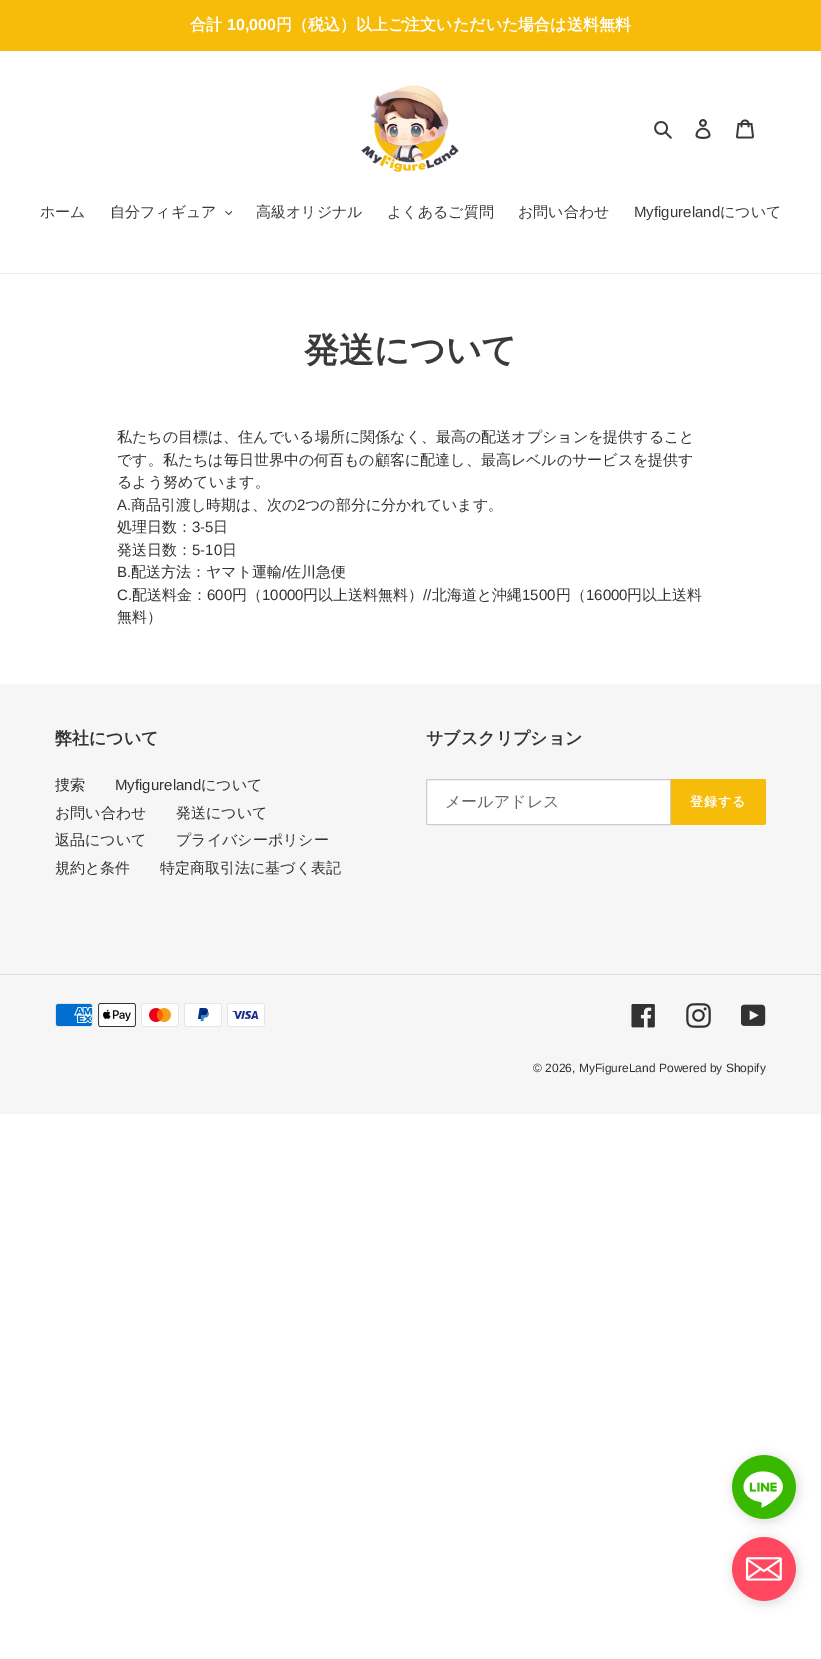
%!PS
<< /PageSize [821 1659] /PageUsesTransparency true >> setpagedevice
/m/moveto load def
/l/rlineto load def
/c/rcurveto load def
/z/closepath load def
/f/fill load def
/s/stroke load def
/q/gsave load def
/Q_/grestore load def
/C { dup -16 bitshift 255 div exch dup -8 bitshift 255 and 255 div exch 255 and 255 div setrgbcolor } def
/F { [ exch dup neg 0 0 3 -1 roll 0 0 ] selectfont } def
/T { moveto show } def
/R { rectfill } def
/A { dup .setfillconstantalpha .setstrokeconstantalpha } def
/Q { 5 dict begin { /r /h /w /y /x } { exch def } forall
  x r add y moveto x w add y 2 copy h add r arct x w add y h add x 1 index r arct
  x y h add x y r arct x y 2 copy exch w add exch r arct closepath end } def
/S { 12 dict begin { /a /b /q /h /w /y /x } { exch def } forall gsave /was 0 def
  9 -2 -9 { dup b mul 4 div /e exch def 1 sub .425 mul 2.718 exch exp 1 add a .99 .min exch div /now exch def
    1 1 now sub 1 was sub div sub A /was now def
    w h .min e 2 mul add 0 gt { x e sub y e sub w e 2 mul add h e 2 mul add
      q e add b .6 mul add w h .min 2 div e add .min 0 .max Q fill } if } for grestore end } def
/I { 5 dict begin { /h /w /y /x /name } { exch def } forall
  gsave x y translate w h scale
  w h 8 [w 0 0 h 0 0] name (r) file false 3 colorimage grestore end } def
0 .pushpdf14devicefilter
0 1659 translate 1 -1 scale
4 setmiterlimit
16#FFFFFF C
0 0 821 1659 R
16#F6BC09 C
0 0 821 51 R
/WenQuanYiZenHei-Bold 16 F
16#FFFFFF C
(合計) 190 30 T
/LiberationSans-Bold 16 F
(10,000) 227 30 T
/WenQuanYiZenHei-Bold 16 F
(円（税込）以上ご注文いただいた場合は送料無料) 276 30 T
(1.rgb) 361 85 98 87 I
(2.rgb) 654 121 18 18 I
(3.rgb) 695 119 16 20 I
(4.rgb) 736 119 18 20 I
16#EBEBEB C
0 273 821 1 R
/WenQuanYiZenHei-Medium 15 F
16#3A3A3A C
(ホーム) 40 217 T
(自分フィギュア) 110 217 T
(5.rgb) 225 211 7 4 I
(高級オリジナル) 256 217 T
(よくあるご質問) 387 217 T
(お問い合わせ) 518 217 T
/LiberationSans-Regular 15 F
(Myfigureland) 634 217 T
/WenQuanYiZenHei-Medium 15 F
(について) 720 217 T
/WenQuanYiZenHei-Bold 35 F
(発送について) 304 362 T
/WenQuanYiZenHei-Medium 15 F
16#333232 C
(私たちの目標は、住んでいる場所に関係なく、最高の配送オプションを提供すること) 117 442 T
(です。私たちは毎日世界中の何百もの顧客に配達し、最高レベルのサービスを提供す) 117 465 T
(るよう努めています。) 117 487 T
/LiberationSans-Regular 15 F
(A.) 117 510 T
/WenQuanYiZenHei-Medium 15 F
(商品引渡し時期は、次の) 131 510 T
/LiberationSans-Regular 15 F
(2) 297 510 T
/WenQuanYiZenHei-Medium 15 F
(つの部分に分かれています。) 305 510 T
(処理日数：) 117 532 T
/LiberationSans-Regular 15 F
(3-5) 192 532 T
/WenQuanYiZenHei-Medium 15 F
(日) 213 532 T
(発送日数：) 117 555 T
/LiberationSans-Regular 15 F
(5-10) 192 555 T
/WenQuanYiZenHei-Medium 15 F
(日) 222 555 T
/LiberationSans-Regular 15 F
(B.) 117 577 T
/WenQuanYiZenHei-Medium 15 F
(配送方法：ヤマト運輸) 131 577 T
/LiberationSans-Regular 15 F
(/) 282 577 T
/WenQuanYiZenHei-Medium 15 F
(佐川急便) 286 577 T
/LiberationSans-Regular 15 F
(C.) 117 600 T
/WenQuanYiZenHei-Medium 15 F
(配送料金：) 132 600 T
/LiberationSans-Regular 15 F
(600) 207 600 T
/WenQuanYiZenHei-Medium 15 F
(円（) 232 600 T
/LiberationSans-Regular 15 F
(10000) 262 600 T
/WenQuanYiZenHei-Medium 15 F
(円以上送料無料）) 303 600 T
/LiberationSans-Regular 15 F
(//) 423 600 T
/WenQuanYiZenHei-Medium 15 F
(北海道と沖縄) 432 600 T
/LiberationSans-Regular 15 F
(1500) 522 600 T
/WenQuanYiZenHei-Medium 15 F
(円（) 556 600 T
/LiberationSans-Regular 15 F
(16000) 586 600 T
/WenQuanYiZenHei-Medium 15 F
(円以上送料) 627 600 T
(無料）) 117 622 T
16#F6F6F6 C
0 684 821 430 R
/WenQuanYiZenHei-Bold 17 F
16#333232 C
(弊社について) 55 744 T
/WenQuanYiZenHei-Medium 15 F
(捜索) 55 790 T
/LiberationSans-Regular 15 F
(Myfigureland) 115 790 T
/WenQuanYiZenHei-Medium 15 F
(について) 201 790 T
(お問い合わせ) 55 818 T
(発送について) 176 818 T
(返品について) 55 845 T
(プライバシーポリシー) 176 845 T
(規約と条件) 55 873 T
(特定商取引法に基づく表記) 160 873 T
/WenQuanYiZenHei-Bold 17 F
(サブスクリプション) 426 744 T
16#FFFFFF C
428 779.5 m 242.5 0 l 0 45 l -242.5 0 l -1 0 -1.5 -.5 -1.5 -1.5 c 0 -42 l 0 -1 .5 -1.5 1.5 -1.5 c z q f Q_
16#CCCCCC C
s
/WenQuanYiZenHei-Medium 16 F
16#666666 C
(メールアドレス) 445 807 T
16#F6BC09 C
671 779 m 93 0 l 1 0 2 1 2 2 c 0 42 l 0 1 -1 2 -2 2 c -93 0 l z f
/WenQuanYiZenHei-Bold 13 F
16#FFFFFF C
690 806 m 1 0 (登録する) ashow
16#DDDDDD C
0 974 821 1 R
(6.rgb) 55 1003 38 24 I
(7.rgb) 98 1003 38 24 I
(8.rgb) 141 1003 38 24 I
(9.rgb) 184 1003 38 24 I
(10.rgb) 227 1003 38 24 I
(11.rgb) 631 1004 24 24 I
(12.rgb) 686 1003 25 25 I
(13.rgb) 741 1004 25 22 I
/LiberationSans-Regular 12 F
16#333232 C
(© 2026, MyFigureLand) 533 1072 T
(Powered by Shopify) 659 1072 T
16#000000 C
732 1537 68 68 34 4.5 .07 S
732 1539 64 64 32 5 .05 S
(15.rgb) 732 1537 64 64 I
732 1455 68 68 34 4.5 .07 S
732 1457 64 64 32 5 .05 S
(14.rgb) 732 1455 64 64 I
.poppdf14devicefilter showpage
